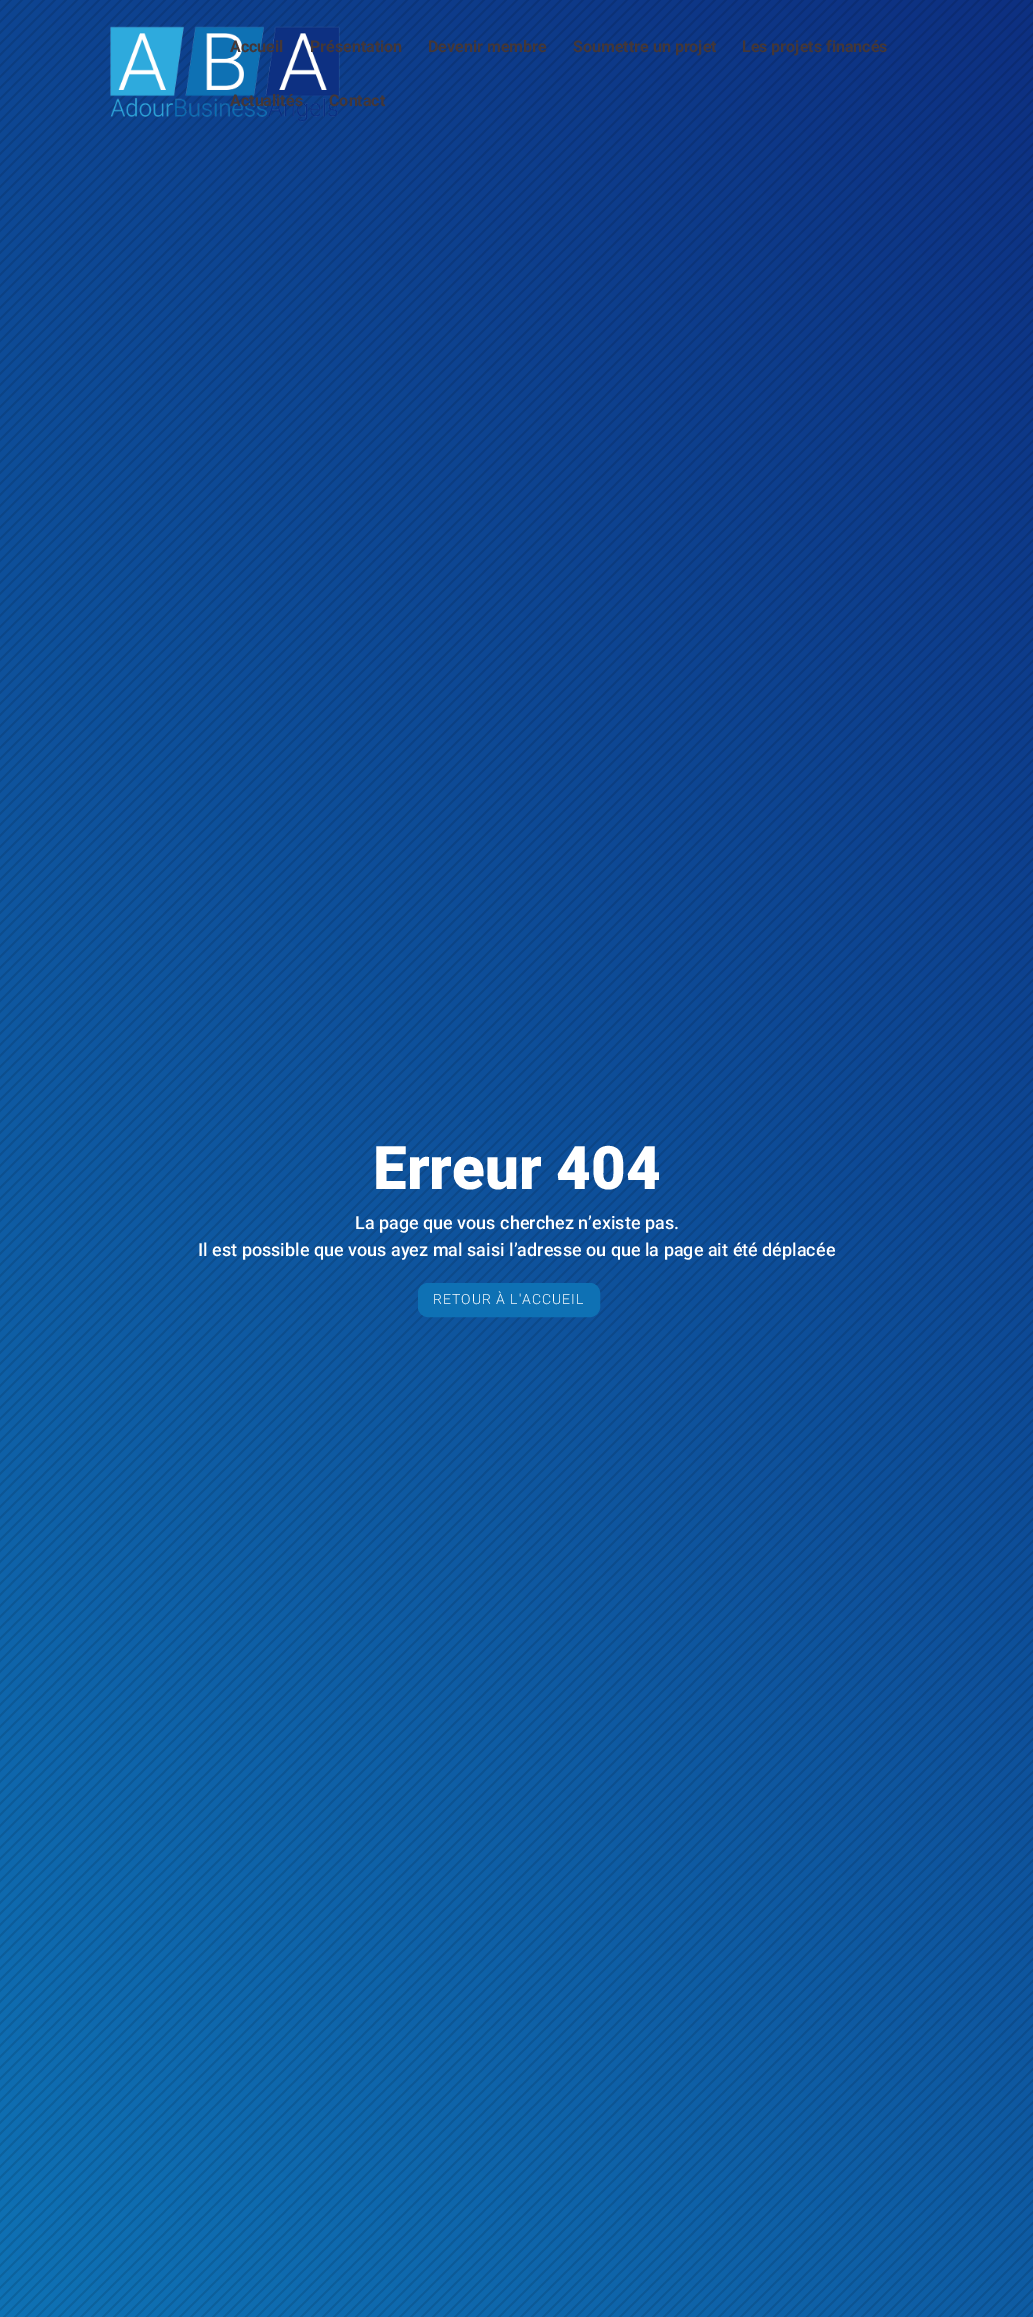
%!PS
<< /PageSize [1033 2317] >> setpagedevice
/m/moveto load def
/l/rlineto load def
/z/closepath load def
/f/fill load def
/s/stroke load def
/q/gsave load def
/Q_/grestore load def
/C { dup -16 bitshift 255 div exch dup -8 bitshift 255 and 255 div exch 255 and 255 div setrgbcolor } def
/F { [ exch dup neg 0 0 3 -1 roll 0 0 ] selectfont } def
/T { moveto show } def
/R { rectfill } def
/Q { 5 dict begin { /r /h /w /y /x } { exch def } forall
  x r add y moveto x w add y 2 copy h add r arct x w add y h add x 1 index r arct
  x y h add x y r arct x y 2 copy exch w add exch r arct closepath end } def
/I { 5 dict begin { /h /w /y /x /name } { exch def } forall
  gsave x y translate w h scale
  w h 8 [w 0 0 h 0 0] name (r) file false 3 colorimage grestore end } def
0 2317 translate 1 -1 scale
4 setmiterlimit
16#FFFFFF C
0 0 1033 2317 R
q 0 0 m 1033 0 l 0 2317 l -1033 0 l z clip newpath
<< /ShadingType 2 /ColorSpace /DeviceRGB /Coords [-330 1976 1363 341] /Extend [true true] /Function << /FunctionType 3 /Domain [0 1] /Functions [<< /FunctionType 2 /Domain [0 1] /C0 [.055 .443 .706] /C1 [.051 .188 .51] /N 1 >> << /FunctionType 2 /Domain [0 1] /C0 [.051 .188 .51] /C1 [.051 .188 .51] /N 1 >>] /Bounds [.99] /Encode [0 1 0 1] >> >> shfill Q_
(2.rgb) 0 0 1033 2317 I
(1.rgb) 110 26 230 96 I
/Roboto-Bold 16 F
16#443737 C
(Accueil) 230 52 T
(Présentation) 310 52 T
(Devenir membre) 428 52 T
(Soumettre un projet) 573 52 T
(Les projets financés) 742 52 T
(Actualités) 230 106 T
(Contact) 329 106 T
/Roboto-Black 60 F
16#FFFFFF C
(Erreur 404) 373 1189 T
/Roboto-Medium 18 F
(La page que vous cherchez n’existe pas.) 355 1229 T
(Il est possible que vous ayez mal saisi l’adresse ou que la page ait été déplacée) 198 1256 T
16#0E71B4 C
418.5 1283.5 181 33 9.5 Q q f Q_
s
/Roboto-Light 14 F
16#FFFFFF C
433 1304 m 1 0 (RETOUR À L'ACCUEIL) ashow
showpage
